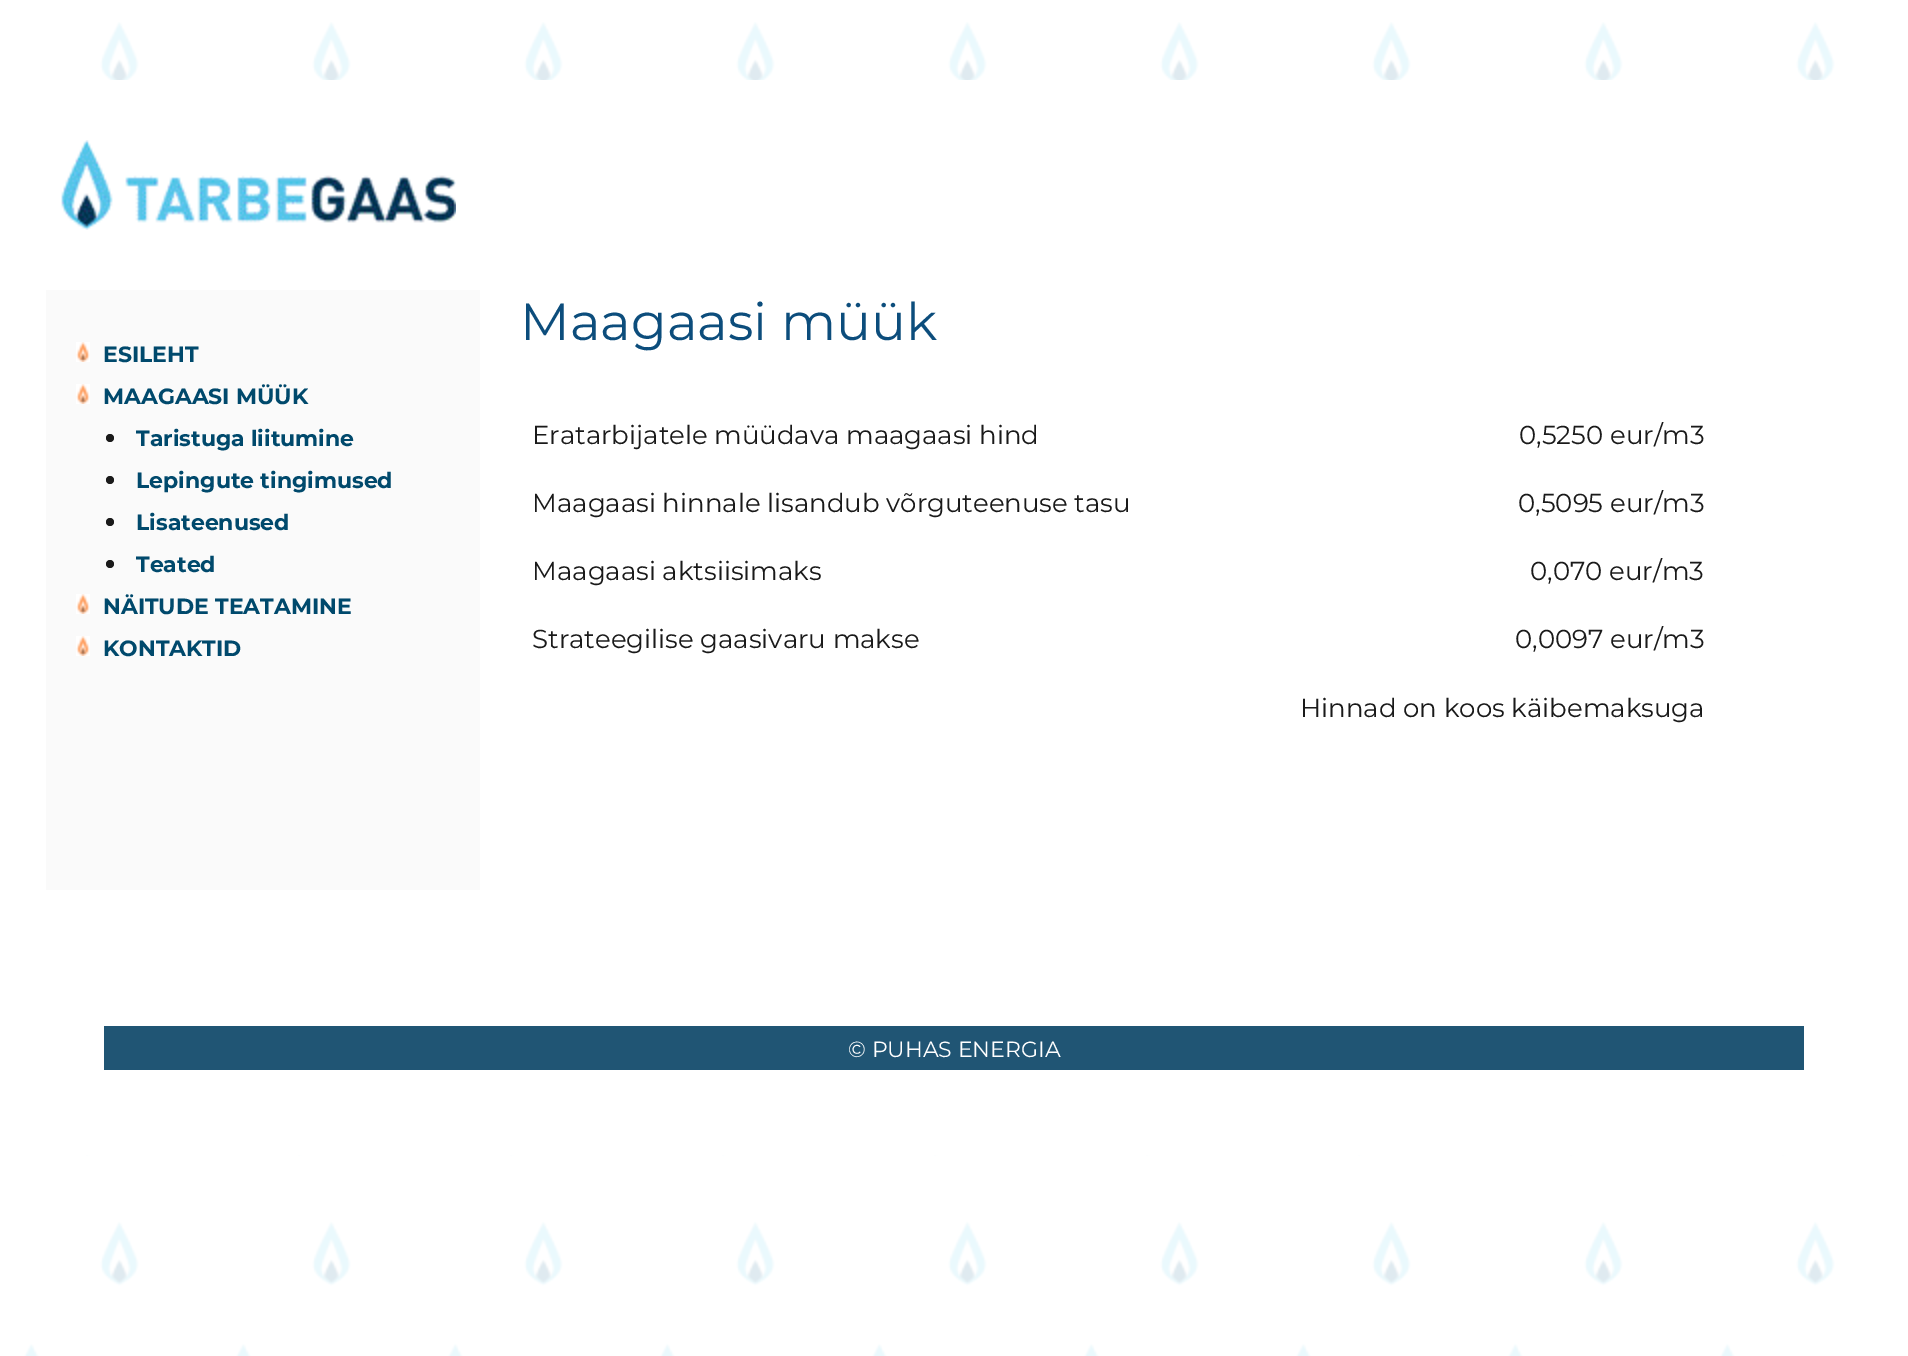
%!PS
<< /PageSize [1908 1356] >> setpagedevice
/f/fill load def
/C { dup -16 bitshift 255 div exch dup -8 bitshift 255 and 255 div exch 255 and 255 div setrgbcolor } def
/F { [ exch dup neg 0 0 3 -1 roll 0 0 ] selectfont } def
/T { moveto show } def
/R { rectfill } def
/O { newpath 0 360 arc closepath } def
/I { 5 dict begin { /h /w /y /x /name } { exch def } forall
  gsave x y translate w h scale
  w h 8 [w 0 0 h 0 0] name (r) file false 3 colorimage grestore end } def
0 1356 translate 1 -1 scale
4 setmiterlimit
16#FFFFFF C
0 0 1908 1356 R
(1.rgb) 23 22 1812 1334 I
23 80 1812 1075 R
(2.rgb) 61 140 395 90 I
16#FAFAFA C
46 290 434 600 R
(3.rgb) 76 342 14 20 I
/Montserrat-Thin 22 F
16#00496C C
(ESILEHT) 103 362 T
(3.rgb) 76 384 14 20 I
(MAAGAASI MÜÜK) 103 404 T
16#1A1A1A C
110 438 4 O f
16#00496C C
(Taristuga liitumine) 136 446 T
16#1A1A1A C
110 480 4 O f
16#00496C C
(Lepingute tingimused) 136 488 T
16#1A1A1A C
110 522 4 O f
16#00496C C
(Lisateenused) 136 530 T
16#1A1A1A C
110 564 4 O f
16#00496C C
(Teated) 136 572 T
(3.rgb) 76 594 14 20 I
(NÄITUDE TEATAMINE) 103 614 T
(3.rgb) 76 636 14 20 I
(KONTAKTID) 103 656 T
/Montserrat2-Thin 52 F
16#0C4D7C C
(Maagaasi müük) 520 340 T
/Montserrat2-Thin 26 F
16#1A1A1A C
(Eratarbijatele müüdava maagaasi hind) 532 444 T
(0,5250 eur/m3) 1519 444 T
(Maagaasi hinnale lisandub võrguteenuse tasu) 532 512 T
(0,5095 eur/m3) 1518 512 T
(Maagaasi aktsiisimaks) 532 580 T
(0,070 eur/m3) 1530 580 T
(Strateegilise gaasivaru makse) 532 648 T
(0,0097 eur/m3) 1515 648 T
(Hinnad on koos käibemaksuga) 1300 717 T
16#205574 C
104 1026 1700 44 R
/Montserrat2-Thin 22 F
16#FFFFFF C
(© PUHAS ENERGIA) 848 1057 T
showpage
